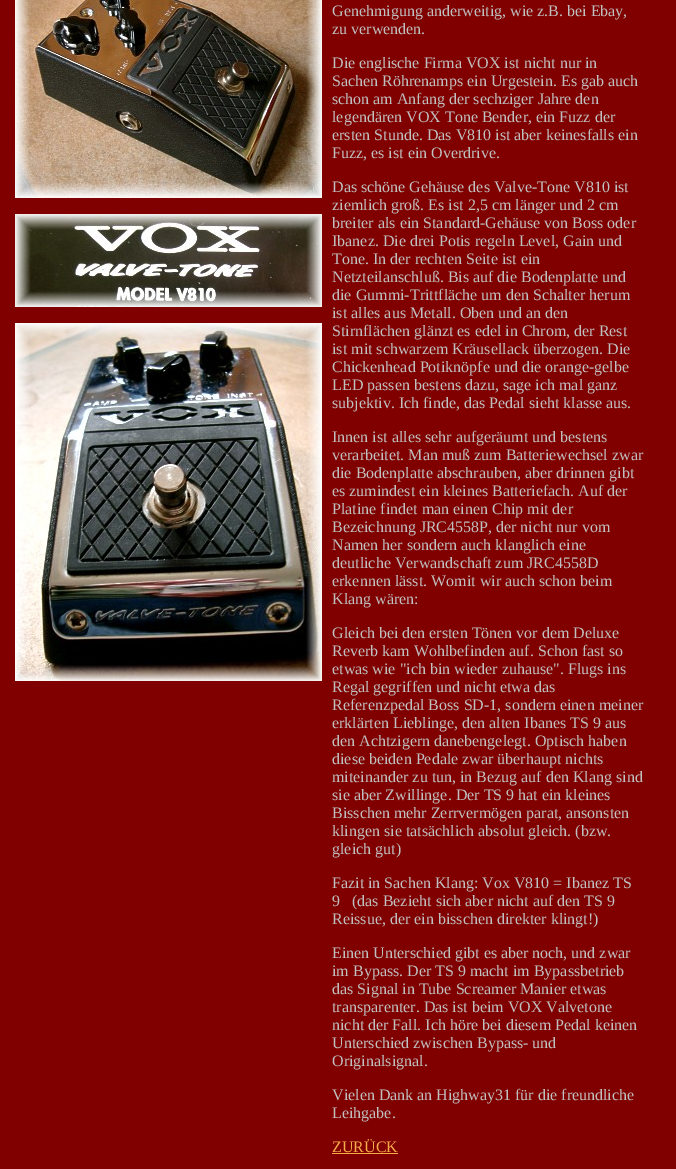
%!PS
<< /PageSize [676 1169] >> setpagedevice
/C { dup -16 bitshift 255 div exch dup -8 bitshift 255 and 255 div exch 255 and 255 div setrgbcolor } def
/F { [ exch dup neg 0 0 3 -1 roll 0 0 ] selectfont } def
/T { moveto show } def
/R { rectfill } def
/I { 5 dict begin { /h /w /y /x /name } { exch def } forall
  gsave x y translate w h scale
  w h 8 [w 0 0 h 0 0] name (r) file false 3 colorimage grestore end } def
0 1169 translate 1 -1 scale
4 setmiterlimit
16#800000 C
0 0 676 1169 R
(1.rgb) 15 0 307 198 I
(2.rgb) 15 214 307 93 I
(3.rgb) 15 323 307 358 I
/LiberationSerif-Regular 16 F
16#C0C0C0 C
(Genehmigung anderweitig, wie z.B. bei Ebay,) 332 16 T
(zu verwenden.) 332 34 T
(Die englische Firma VOX ist nicht nur in) 332 68 T
(Sachen Röhrenamps ein Urgestein. Es gab auch) 332 86 T
(schon am Anfang der sechziger Jahre den) 332 104 T
(legendären VOX Tone Bender, ein Fuzz der) 332 122 T
(ersten Stunde. Das V810 ist aber keinesfalls ein) 332 140 T
(Fuzz, es ist ein Overdrive.) 332 158 T
(Das schöne Gehäuse des Valve-Tone V810 ist) 332 192 T
(ziemlich groß. Es ist 2,5 cm länger und 2 cm) 332 210 T
(breiter als ein Standard-Gehäuse von Boss oder) 332 228 T
(Ibanez. Die drei Potis regeln Level, Gain und) 332 246 T
(Tone. In der rechten Seite ist ein) 332 264 T
(Netzteilanschluß. Bis auf die Bodenplatte und) 332 282 T
(die Gummi-Trittfläche um den Schalter herum) 332 300 T
(ist alles aus Metall. Oben und an den) 332 318 T
(Stirnflächen glänzt es edel in Chrom, der Rest) 332 336 T
(ist mit schwarzem Kräusellack überzogen. Die) 332 354 T
(Chickenhead Potiknöpfe und die orange-gelbe) 332 372 T
(LED passen bestens dazu, sage ich mal ganz) 332 390 T
(subjektiv. Ich finde, das Pedal sieht klasse aus.) 332 408 T
(Innen ist alles sehr aufgeräumt und bestens) 332 442 T
(verarbeitet. Man muß zum Batteriewechsel zwar) 332 460 T
(die Bodenplatte abschrauben, aber drinnen gibt) 332 478 T
(es zumindest ein kleines Batteriefach. Auf der) 332 496 T
(Platine findet man einen Chip mit der) 332 514 T
(Bezeichnung JRC4558P, der nicht nur vom) 332 532 T
(Namen her sondern auch klanglich eine) 332 550 T
(deutliche Verwandschaft zum JRC4558D) 332 568 T
(erkennen lässt. Womit wir auch schon beim) 332 586 T
(Klang wären:) 332 604 T
(Gleich bei den ersten Tönen vor dem Deluxe) 332 638 T
(Reverb kam Wohlbefinden auf. Schon fast so) 332 656 T
(etwas wie "ich bin wieder zuhause". Flugs ins) 332 674 T
(Regal gegriffen und nicht etwa das) 332 692 T
(Referenzpedal Boss SD-1, sondern einen meiner) 332 710 T
(erklärten Lieblinge, den alten Ibanes TS 9 aus) 332 728 T
(den Achtzigern danebengelegt. Optisch haben) 332 746 T
(diese beiden Pedale zwar überhaupt nichts) 332 764 T
(miteinander zu tun, in Bezug auf den Klang sind) 332 782 T
(sie aber Zwillinge. Der TS 9 hat ein kleines) 332 800 T
(Bisschen mehr Zerrvermögen parat, ansonsten) 332 818 T
(klingen sie tatsächlich absolut gleich. \(bzw.) 332 836 T
(gleich gut\)) 332 854 T
(Fazit in Sachen Klang: Vox V810 = Ibanez TS) 332 888 T
(9   \(das Bezieht sich aber nicht auf den TS 9) 332 906 T
(Reissue, der ein bisschen direkter klingt!\)) 332 924 T
(Einen Unterschied gibt es aber noch, und zwar) 332 958 T
(im Bypass. Der TS 9 macht im Bypassbetrieb) 332 976 T
(das Signal in Tube Screamer Manier etwas) 332 994 T
(transparenter. Das ist beim VOX Valvetone) 332 1012 T
(nicht der Fall. Ich höre bei diesem Pedal keinen) 332 1030 T
(Unterschied zwischen Bypass- und) 332 1048 T
(Originalsignal.) 332 1066 T
(Vielen Dank an Highway31 für die freundliche) 332 1100 T
(Leihgabe.) 332 1118 T
16#F5AC49 C
(ZURÜCK) 332 1152 T
332 1153 66 1 R
showpage
